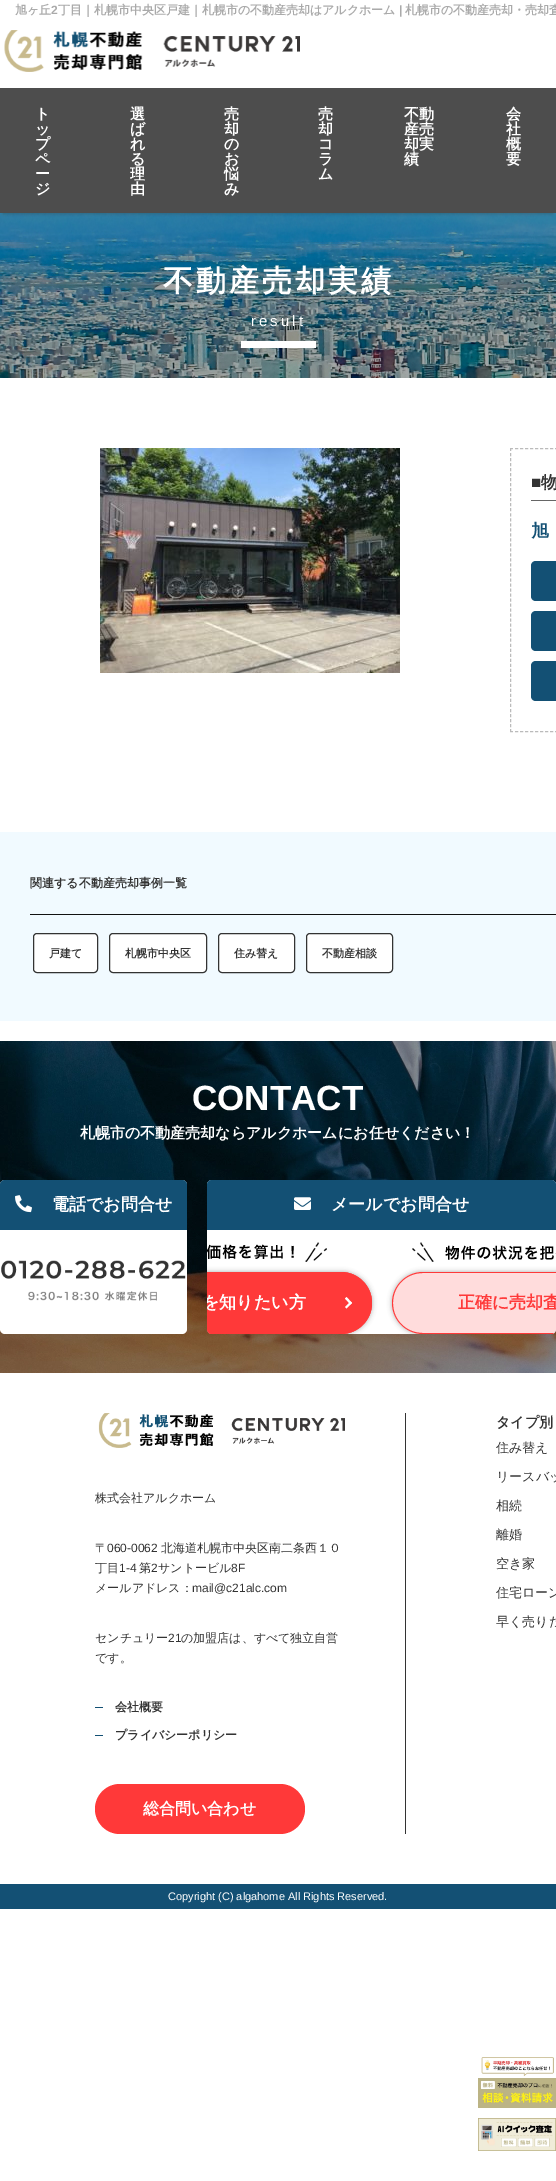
%!PS
<< /PageSize [556 2181] /PageUsesTransparency true >> setpagedevice
/m/moveto load def
/l/rlineto load def
/c/rcurveto load def
/z/closepath load def
/f/fill load def
/s/stroke load def
/q/gsave load def
/Q_/grestore load def
/C { dup -16 bitshift 255 div exch dup -8 bitshift 255 and 255 div exch 255 and 255 div setrgbcolor } def
/F { [ exch dup neg 0 0 3 -1 roll 0 0 ] selectfont } def
/T { moveto show } def
/R { rectfill } def
/A { dup .setfillconstantalpha .setstrokeconstantalpha } def
/Q { 5 dict begin { /r /h /w /y /x } { exch def } forall
  x r add y moveto x w add y 2 copy h add r arct x w add y h add x 1 index r arct
  x y h add x y r arct x y 2 copy exch w add exch r arct closepath end } def
/S { 12 dict begin { /a /b /q /h /w /y /x } { exch def } forall gsave /was 0 def
  9 -2 -9 { dup b mul 4 div /e exch def 1 sub .425 mul 2.718 exch exp 1 add a .99 .min exch div /now exch def
    1 1 now sub 1 was sub div sub A /was now def
    w h .min e 2 mul add 0 gt { x e sub y e sub w e 2 mul add h e 2 mul add
      q e add b .6 mul add w h .min 2 div e add .min 0 .max Q fill } if } for grestore end } def
/I { 5 dict begin { /h /w /y /x /name } { exch def } forall
  gsave x y translate w h scale
  w h 8 [w 0 0 h 0 0] name (r) file false 3 colorimage grestore end } def
0 .pushpdf14devicefilter
0 2181 translate 1 -1 scale
4 setmiterlimit
16#FFFFFF C
0 0 556 2181 R
/WenQuanYiZenHei-Bold 12 F
16#AAAAAA C
(旭ヶ丘) 15 14 T
/LiberationSans-Bold 12 F
(2) 51 14 T
/WenQuanYiZenHei-Bold 12 F
(丁目｜札幌市中央区戸建｜札幌市の不動産売却はアルクホーム) 58 14 T
/LiberationSans-Bold 12 F
(|) 399 14 T
/WenQuanYiZenHei-Bold 12 F
(札幌市の不動産売却・売却査) 405 14 T
(1.rgb) 4 30 296 42 I
(2.rgb) 0 213 556 165 I
16#333333 C
3 95 550 119 0 1.5 .3 S
16#4D4D4D C
0 88 556 125 R
/WenQuanYiZenHei-Bold 15 F
16#FFFFFF C
(ト) 35 119 T
(ッ) 35 134 T
(プ) 35 149 T
(ペ) 35 164 T
(ー) 35 179 T
(ジ) 35 194 T
(選) 130 119 T
(ば) 130 134 T
(れ) 130 149 T
(る) 130 164 T
(理) 130 179 T
(由) 130 194 T
(売) 224 119 T
(却) 224 134 T
(の) 224 149 T
(お) 224 164 T
(悩) 224 179 T
(み) 224 194 T
(売) 318 119 T
(却) 318 134 T
(コ) 318 149 T
(ラ) 318 164 T
(ム) 318 179 T
(不動) 404 119 T
(産売) 404 134 T
(却実) 404 149 T
(績) 404 164 T
(会) 506 119 T
(社) 506 134 T
(概) 506 149 T
(要) 506 164 T
/WenQuanYiZenHei-Bold 30 F
163 291 m 3 0 (不動産売却実績) ashow
/LiberationSans-Regular 15 F
251 326 m 3 0 (result) ashow
241 341 75 7 R
(3.rgb) 100 448 300 225 I
16#BBBBBB C
[3 2.02] 0 setdash
510 448.5 m 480 0 l s
510 731.5 m 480 0 l s
510.5 448 m 0 284 l s
16#666666 C
531 500 25 1 R
/LiberationSans-Bold 17 F
16#333333 C
(■) 531 488 T
/WenQuanYiZenHei-Bold 17 F
(物) 541 488 T
/WenQuanYiZenHei-Bold 18 F
16#135074 C
(旭) 531 537 T
536 561 m 20 0 l 0 40 l -20 0 l -3 0 -5 -2 -5 -5 c 0 -30 l 0 -3 2 -5 5 -5 c z f
536 611 m 20 0 l 0 40 l -20 0 l -3 0 -5 -2 -5 -5 c 0 -30 l 0 -3 2 -5 5 -5 c z f
536 661 m 20 0 l 0 40 l -20 0 l -3 0 -5 -2 -5 -5 c 0 -30 l 0 -3 2 -5 5 -5 c z f
16#F1FAFF C
0 832 556 189 R
16#111111 C
30 914 526 1 R
/WenQuanYiZenHei-Bold 12 F
16#333333 C
(関連する不動産売却事例一覧) 30 887 T
16#FFFFFF C
33.5 933.5 64 39 3.5 Q q f Q_
16#333333 C
[] 0 setdash
s
/WenQuanYiZenHei-Bold 11 F
(戸建て) 49 957 T
16#FFFFFF C
109.5 933.5 97 39 3.5 Q q f Q_
16#333333 C
s
(札幌市中央区) 125 957 T
16#FFFFFF C
218.5 933.5 76 39 3.5 Q q f Q_
16#333333 C
s
(住み替え) 234 957 T
16#FFFFFF C
306.5 933.5 86 39 3.5 Q q f Q_
16#333333 C
s
(不動産相談) 322 957 T
(4.rgb) 0 1041 556 332 I
/LiberationSans-Bold 35 F
16#FFFFFF C
(CONTACT) 192 1110 T
/WenQuanYiZenHei-Bold 15 F
(札幌市の不動産売却ならアルクホームにお任せください！) 80 1138 T
0 1180 187 154 5 Q f
16#135074 C
5 1180 m 177 0 l 3 0 5 2 5 5 c 0 45 l -187 0 l 0 -45 l 0 -3 2 -5 5 -5 c z f
(5.rgb) 15 1195 17 18 I
/WenQuanYiZenHei-Bold 17 F
16#FFFFFF C
(電話でお問合せ) 52 1210 T
(6.rgb) 1 1260 185 41 I
207 1180 349 154 5 Q f
16#135074 C
212 1180 m 339 0 l 3 0 5 2 5 5 c 0 45 l -349 0 l 0 -45 l 0 -3 2 -5 5 -5 c z f
(7.rgb) 294 1197 17 13 I
16#FFFFFF C
(メールでお問合せ) 331 1210 T
(8.rgb) 207 1242 120 20 I
q
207 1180 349 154 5 Q clip newpath
16#000000 C
50 1272 322 62 31 2.5 .33 S
Q_
16#FF3939 C
207 1272 m 134 0 l 17 0 31 14 31 31 c 0 17 -14 31 -31 31 c -129 0 l -3 0 -5 -2 -5 -5 c z f
212 1334 m 129 0 l 17 0 31 -14 31 -31 c 0 -17 -14 -31 -31 -31 c -134 0 l 0 1 l 134 0 l 17 0 30 13 30 30 c 0 17 -13 30 -30 30 c -132 0 l z f
q
207 1180 349 154 5 Q clip newpath
16#FFFFFF C
(を知りたい方) 202 1308 T
Q_
16#FFFFFF C
346.5 1297 m 5.5 6 l -1.5 1.5 l -5.5 -6 l z f
350.5 1301.5 m 1.5 1.5 l -5.5 5.5 l -1.5 -1.5 l z f
(9.rgb) 412 1242 144 20 I
q
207 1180 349 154 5 Q clip newpath
16#000000 C
392 1272 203 62 31 2.5 .33 S
Q_
16#FFDCDC C
423 1272 m 133 0 l 0 57 l 0 3 -2 5 -5 5 c -128 0 l -17 0 -31 -14 -31 -31 c 0 -17 14 -31 31 -31 c z f
16#FF3939 C
423 1272 m -17 0 -31 14 -31 31 c 0 17 14 31 31 31 c 128 0 l 1 0 2 0 3 -1 c -131 0 l -17 0 -30 -13 -30 -30 c 0 -17 13 -30 30 -30 c 133 0 l 0 -1 l z f
(正確に売却査) 458 1308 T
16#333333 C
405 1413 1 421 R
(10.rgb) 98 1413 247 35 I
/WenQuanYiZenHei-Medium 12 F
(株式会社アルクホーム) 95 1502 T
(〒) 95 1552 T
/LiberationSans-Regular 12 F
(060-0062) 107 1552 T
/WenQuanYiZenHei-Medium 12 F
(北海道札幌市中央区南二条西１０) 161 1552 T
(丁目) 95 1572 T
/LiberationSans-Regular 12 F
(1-4) 119 1572 T
/WenQuanYiZenHei-Medium 12 F
(第) 139 1572 T
/LiberationSans-Regular 12 F
(2) 151 1572 T
/WenQuanYiZenHei-Medium 12 F
(サントービル) 158 1572 T
/LiberationSans-Regular 12 F
(8F) 231 1572 T
/WenQuanYiZenHei-Medium 12 F
(メールアドレス：) 95 1592 T
/LiberationSans-Regular 12 F
(mail@c21alc.com) 192 1592 T
/WenQuanYiZenHei-Medium 12 F
(センチュリー) 95 1642 T
/LiberationSans-Regular 12 F
(21) 168 1642 T
/WenQuanYiZenHei-Medium 12 F
(の加盟店は、すべて独立自営) 181 1642 T
(です。) 95 1662 T
16#135074 C
95 1707 8 1 R
/WenQuanYiZenHei-Bold 12 F
16#333333 C
(会社概要) 115 1711 T
16#135074 C
95 1735 8 1 R
16#333333 C
(プライバシーポリシー) 115 1739 T
16#FF3939 C
95 1784 210 50 25 Q f
/WenQuanYiZenHei-Bold 16 F
16#FFFFFF C
(総合問い合わせ) 143 1814 T
/WenQuanYiZenHei-Bold 14 F
16#333333 C
(タイプ別) 496 1427 T
/WenQuanYiZenHei-Medium 13 F
(住み替え) 496 1452 T
(リースバッ) 496 1481 T
(相続) 496 1510 T
(離婚) 496 1539 T
(空き家) 496 1568 T
(住宅ローン) 496 1597 T
(早く売りた) 496 1626 T
16#135074 C
0 1884 556 25 R
/LiberationSans-Regular 11 F
16#FFFFFF C
(Copyright \(C\) algahome All Rights Reserved.) 168 1900 T
(11.rgb) 478 2057 78 51 I
(12.rgb) 478 2118 78 33 I
.poppdf14devicefilter showpage
